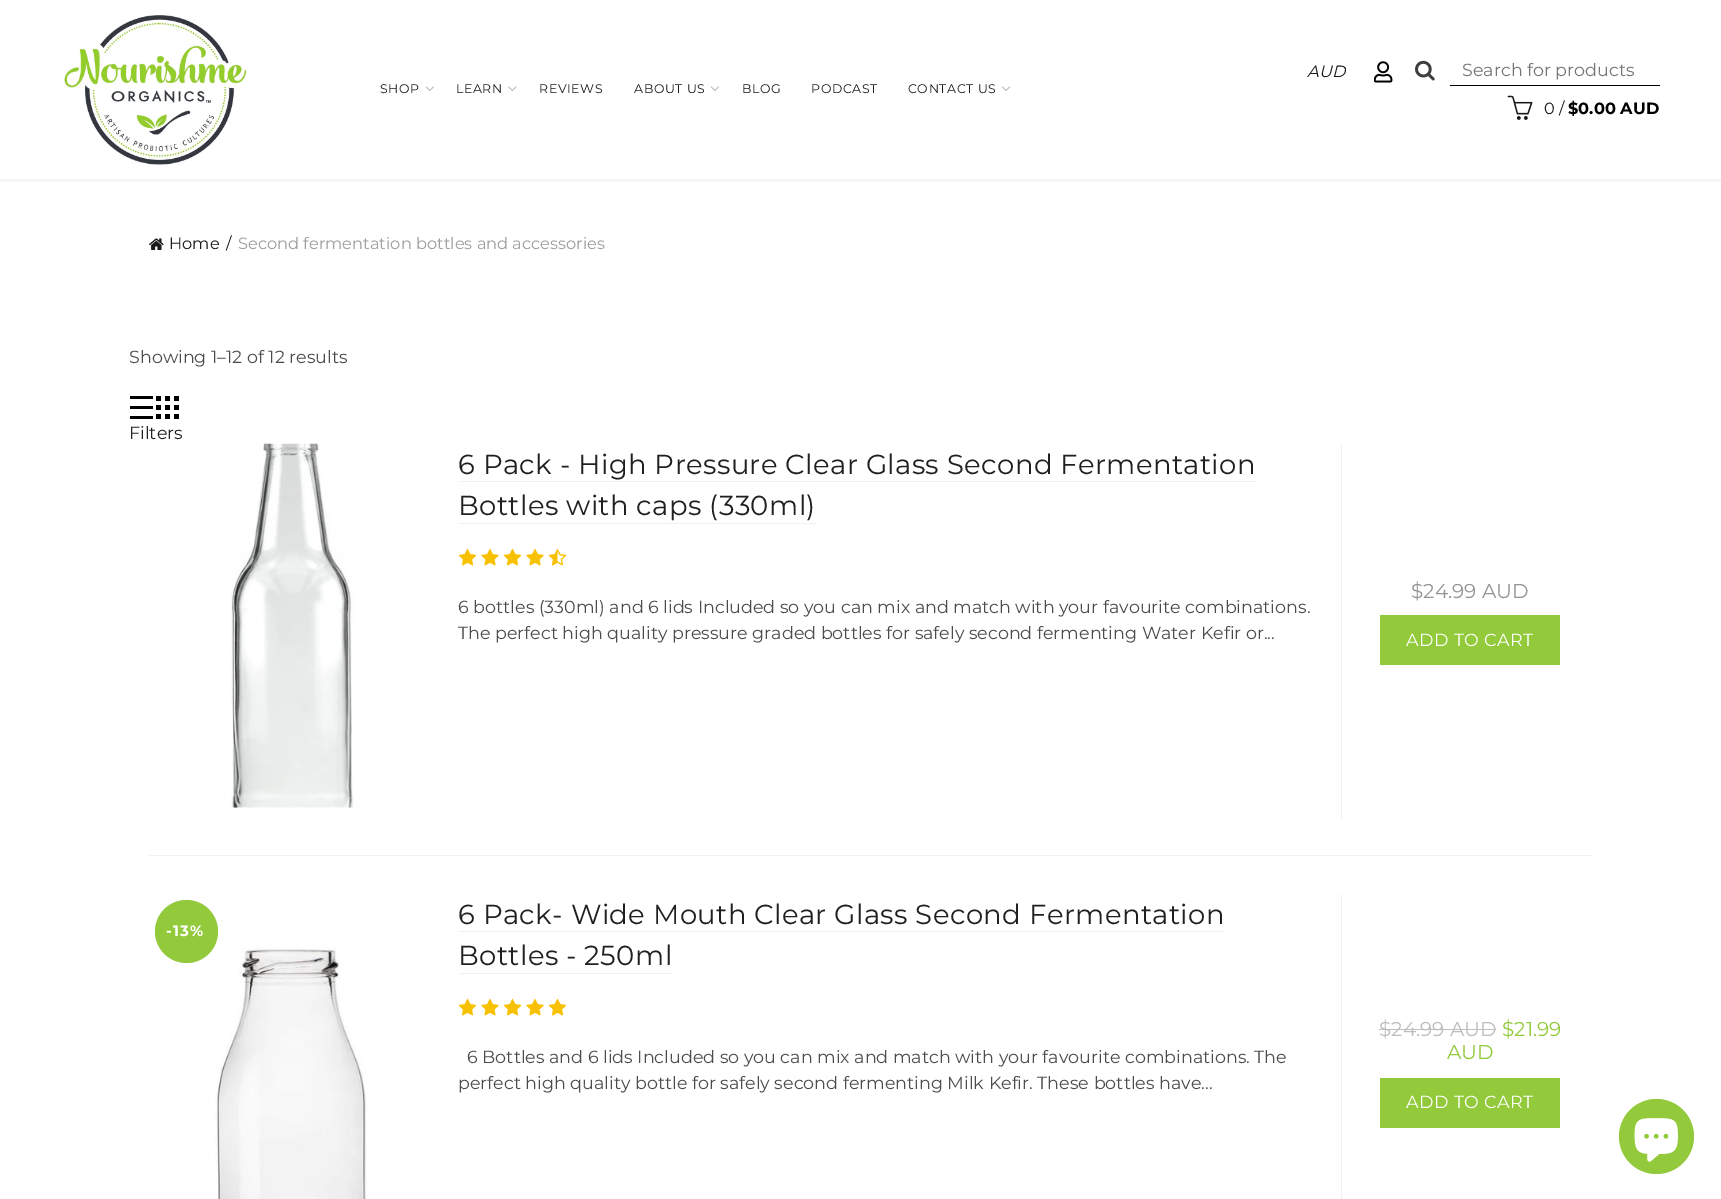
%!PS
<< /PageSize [1721 1199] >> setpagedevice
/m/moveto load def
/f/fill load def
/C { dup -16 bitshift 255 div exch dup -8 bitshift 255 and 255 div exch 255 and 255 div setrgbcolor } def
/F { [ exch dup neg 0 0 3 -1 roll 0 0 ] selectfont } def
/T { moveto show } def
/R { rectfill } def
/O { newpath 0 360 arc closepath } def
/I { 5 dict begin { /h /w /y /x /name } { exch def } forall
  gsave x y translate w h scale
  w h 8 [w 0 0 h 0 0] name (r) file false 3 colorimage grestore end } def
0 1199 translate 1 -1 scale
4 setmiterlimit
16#FFFFFF C
0 0 1721 1199 R
16#F5F5F5 C
0 179 1721 3 R
(1.rgb) 62 15 185 150 I
/Montserrat-Regular 12.5 F
16#1A1A1A C
380 93 m .6 0 (SHOP) ashow
(2.rgb) 425 86 9 6 I
456 93 m .6 0 (LEARN) ashow
(3.rgb) 508 86 9 6 I
539 93 m .6 0 (REVIEWS) ashow
634 93 m .6 0 (ABOUT US) ashow
(2.rgb) 710 86 9 6 I
742 93 m .6 0 (BLOG) ashow
811 93 m .6 0 (PODCAST) ashow
908 93 m .6 0 (CONTACT US) ashow
(4.rgb) 1002 86 9 6 I
/Montserrat-Italic 16.25 F
(AUD) 1307 77 T
(5.rgb) 1374 61 19 22 I
(6.rgb) 1415 60 20 21 I
16#000000 C
1450 85 210 1 R
/Montserrat-Regular 17.5 F
16#757575 C
(Search for products) 1462 76 T
(7.rgb) 1507 95 26 25 I
/Montserrat-Regular 16.25 F
16#1A1A1A C
(0 /) 1544 114 T
/Montserrat-Bold 16.25 F
16#000000 C
($0.00 AUD) 1568 114 T
(8.rgb) 149 238 15 12 I
/Montserrat-Regular 16.25 F
16#1A1A1A C
(Home) 169 249 T
(/) 226 249 T
16#9E9E9E C
(Second fermentation bottles and accessories) 238 249 T
/Montserrat-Regular 17.5 F
16#4C4C4C C
(Showing 1–12 of 12 results) 129 363 T
16#000000 C
130 396 23 3 R
(9.rgb) 156 396 23 23 I
130 406 23 3 R
130 416 23 3 R
16#202020 C
(Filters) 129 439 T
(10.rgb) 231 443 123 365 I
16#F1F1F1 C
1341 444 1 375 R
/Montserrat-Regular 27.5 F
16#202020 C
458 474 m .38 0 (6 Pack - High Pressure Clear Glass Second Fermentation) ashow
16#F1F1F1 C
459 481 797 1 R
16#202020 C
458 515 m .38 0 (Bottles with caps \(330ml\)) ashow
16#F1F1F1 C
459 523 357 1 R
(11.rgb) 458 548 19 18 I
(12.rgb) 481 548 18 18 I
(11.rgb) 503 548 19 18 I
(12.rgb) 526 548 18 18 I
(13.rgb) 548 548 19 18 I
/Montserrat-Regular 17.5 F
16#4C4C4C C
(6 bottles \(330ml\) and 6 lids Included so you can mix and match with your favourite combinations.) 458 613 T
(The perfect high quality pressure graded bottles for safely second fermenting Water Kefir or...) 458 639 T
/Montserrat-Regular 20 F
16#949494 C
($24.99 AUD) 1411 598 T
16#92CA3C C
1380 615 180 50 R
/Montserrat-Regular 17.5 F
16#FFFFFF C
1406 646 m .38 0 (ADD TO CART) ashow
16#F1F1F1 C
149 855 1444 1 R
(14.rgb) 215 948 152 251 I
16#92CA3C C
186.5 931.5 31.5 O f
/Montserrat-Bold 15 F
16#FFFFFF C
166 936 m 1 0 (-13%) ashow
16#F1F1F1 C
1341 894 1 305 R
/Montserrat-Regular 27.5 F
16#202020 C
458 924 m .38 0 (6 Pack- Wide Mouth Clear Glass Second Fermentation) ashow
16#F1F1F1 C
459 931 766 1 R
16#202020 C
458 965 m .38 0 (Bottles - 250ml) ashow
16#F1F1F1 C
459 973 214 1 R
(11.rgb) 458 998 19 18 I
(12.rgb) 481 998 18 18 I
(11.rgb) 503 998 19 18 I
(12.rgb) 526 998 18 18 I
(11.rgb) 548 998 19 18 I
/Montserrat-Regular 17.5 F
16#4C4C4C C
(6 Bottles and 6 lids Included so you can mix and match with your favourite combinations. The) 467 1063 T
(perfect high quality bottle for safely second fermenting Milk Kefir. These bottles have...) 458 1089 T
/Montserrat-Regular 20 F
16#BDBDBD C
($24.99 AUD) 1379 1036 T
1379 1029 117 1 R
16#92CA3C C
($21.99) 1502 1036 T
(AUD) 1447 1059 T
1380 1078 180 50 R
/Montserrat-Regular 17.5 F
16#FFFFFF C
1406 1108 m .38 0 (ADD TO CART) ashow
16#92CA3C C
1656.5 1136.5 37.5 O f
(15.rgb) 1634 1118 44 44 I
showpage
